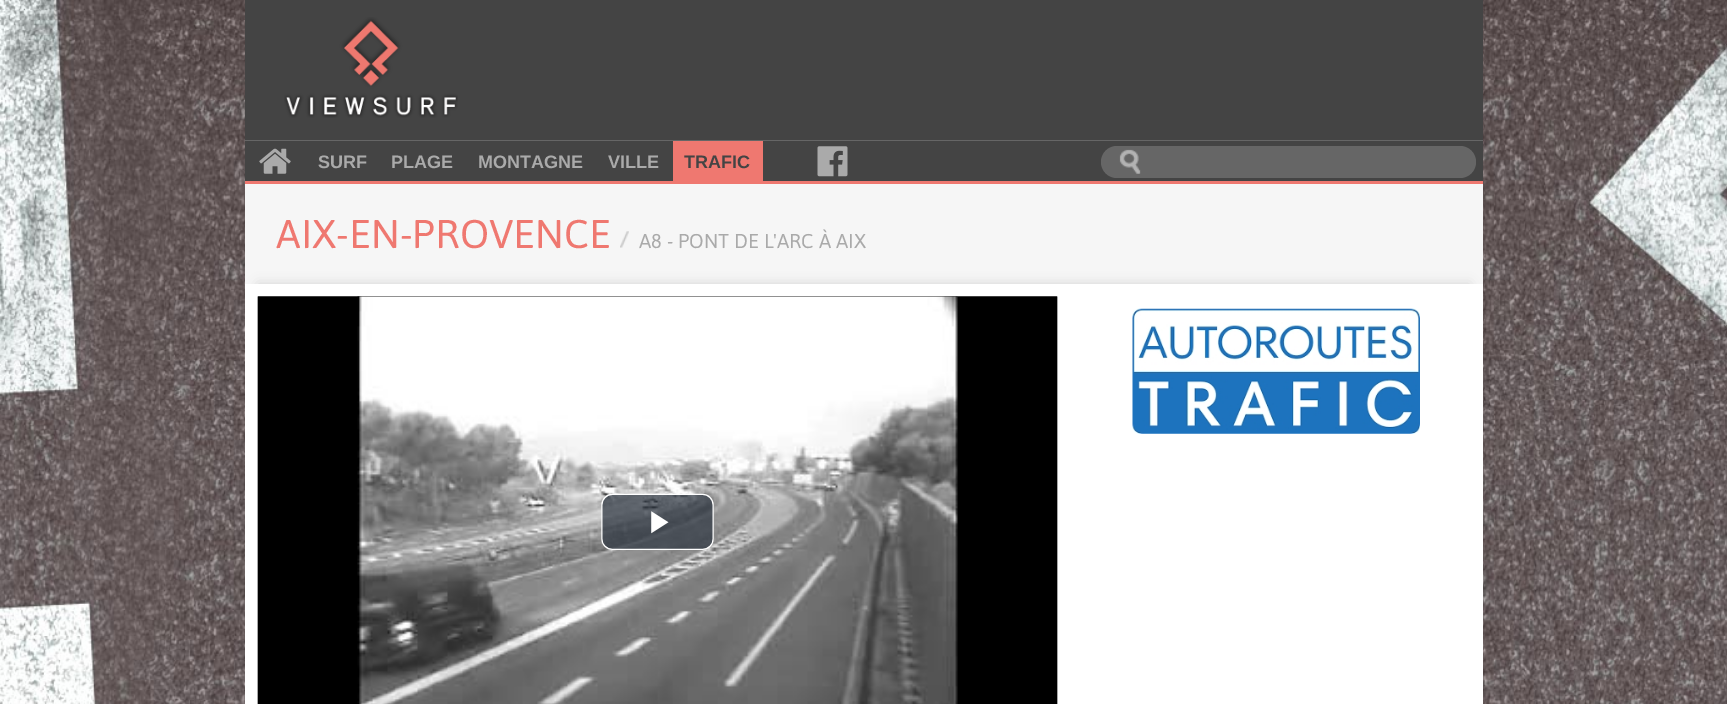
%!PS
<< /PageSize [1727 704] /PageUsesTransparency true >> setpagedevice
/f/fill load def
/C { dup -16 bitshift 255 div exch dup -8 bitshift 255 and 255 div exch 255 and 255 div setrgbcolor } def
/F { [ exch dup neg 0 0 3 -1 roll 0 0 ] selectfont } def
/T { moveto show } def
/R { rectfill } def
/A { dup .setfillconstantalpha .setstrokeconstantalpha } def
/Q { 5 dict begin { /r /h /w /y /x } { exch def } forall
  x r add y moveto x w add y 2 copy h add r arct x w add y h add x 1 index r arct
  x y h add x y r arct x y 2 copy exch w add exch r arct closepath end } def
/S { 12 dict begin { /a /b /q /h /w /y /x } { exch def } forall gsave /was 0 def
  9 -2 -9 { dup b mul 4 div /e exch def 1 sub .425 mul 2.718 exch exp 1 add a .99 .min exch div /now exch def
    1 1 now sub 1 was sub div sub A /was now def
    w h .min e 2 mul add 0 gt { x e sub y e sub w e 2 mul add h e 2 mul add
      q e add b .6 mul add w h .min 2 div e add .min 0 .max Q fill } if } for grestore end } def
/I { 5 dict begin { /h /w /y /x /name } { exch def } forall
  gsave x y translate w h scale
  w h 8 [w 0 0 h 0 0] name (r) file false 3 colorimage grestore end } def
0 .pushpdf14devicefilter
0 704 translate 1 -1 scale
4 setmiterlimit
16#FFFFFF C
0 0 1727 704 R
(1.rgb) 0 0 1727 704 I
16#444444 C
245 0 1238 181 R
16#EF7870 C
245 181 1238 3 R
(2.rgb) 284 17 174 101 I
16#666666 C
245 140 1238 1 R
(3.rgb) 259 148 32 26 I
/LiberationSans-Bold 18 F
16#AAAAAA C
(SURF) 318 168 T
(PLAGE) 391 168 T
(MONTAGNE) 478 168 T
(VILLE) 608 168 T
16#EF7870 C
673 141 90 40 R
16#444444 C
(TRAFIC) 684 168 T
(4.rgb) 817 146 31 31 I
16#666666 C
1101 146 375 32 16 Q f
(5.rgb) 1119 149 22 25 I
16#F6F6F6 C
245 184 1238 100 R
/Asap-Regular 40 F
16#EF7870 C
(AIX-EN-PROVENCE) 276 248 T
(6.rgb) 620 231 9 17 I
/Asap-Regular 20 F
16#AAAAAA C
(A8 - PONT DE L'ARC À AIX) 639 248 T
16#808080 C
258 284 1212 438 0 6 .3 S
16#FFFFFF C
245 284 1238 420 R
(7.rgb) 257 296 801 408 I
(8.rgb) 1132 308 288 126 I
.poppdf14devicefilter showpage
